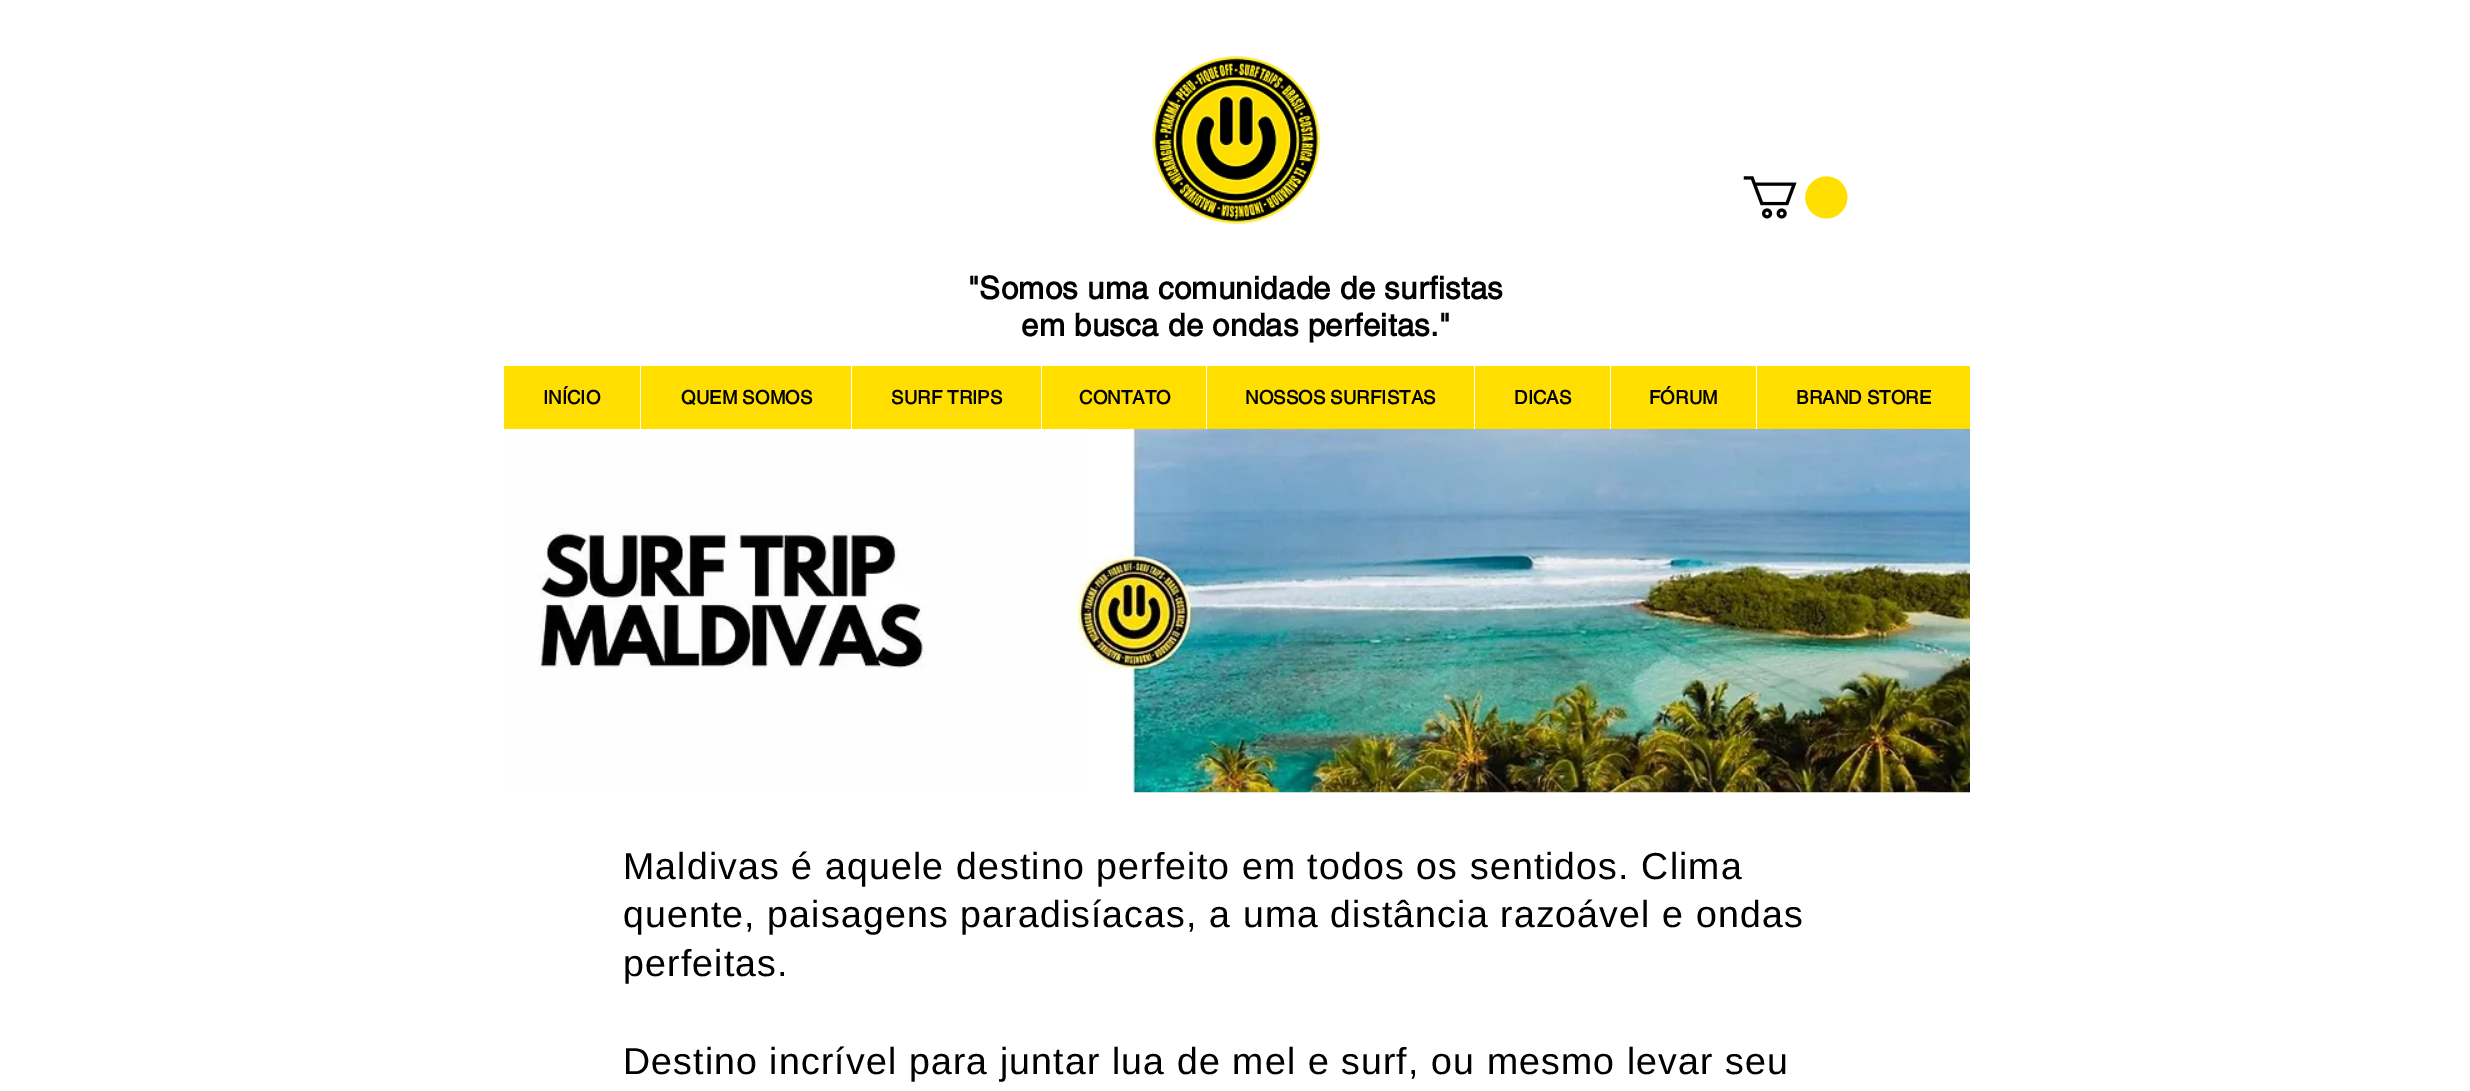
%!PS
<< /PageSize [2470 1091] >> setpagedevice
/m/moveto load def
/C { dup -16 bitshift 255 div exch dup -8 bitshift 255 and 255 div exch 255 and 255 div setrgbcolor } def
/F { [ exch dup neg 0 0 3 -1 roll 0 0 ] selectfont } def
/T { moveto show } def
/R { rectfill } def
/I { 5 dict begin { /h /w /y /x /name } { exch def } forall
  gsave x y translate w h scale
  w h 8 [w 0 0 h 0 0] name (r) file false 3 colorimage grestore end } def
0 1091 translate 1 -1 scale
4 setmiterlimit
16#FFFFFF C
0 0 2470 1091 R
(1.rgb) 1152 56 169 168 I
(2.rgb) 1743 176 105 43 I
/helvetica-Bold 31.25 F
16#000000 C
968 299 m .3 0 ("Somos uma comunidade de surfistas) ashow
1021 336 m .3 0 (em busca de ondas perfeitas.") ashow
16#FFDE00 C
504 366 1466 63 R
/helvetica-Bold 18.75 F
16#000000 C
(INÍCIO) 543 404 T
16#FFFFFF C
640 366 1 63 R
16#000000 C
(QUEM SOMOS) 681 404 T
16#FFFFFF C
851 366 1 63 R
16#000000 C
(SURF TRIPS) 891 404 T
16#FFFFFF C
1041 366 1 63 R
16#000000 C
(CONTATO) 1079 404 T
16#FFFFFF C
1206 366 1 63 R
16#000000 C
(NOSSOS SURFISTAS) 1245 404 T
16#FFFFFF C
1474 366 1 63 R
16#000000 C
(DICAS) 1514 404 T
16#FFFFFF C
1610 366 1 63 R
16#000000 C
(FÓRUM) 1649 404 T
16#FFFFFF C
1756 366 1 63 R
16#000000 C
(BRAND STORE) 1796 404 T
(3.rgb) 504 428 1466 365 I
/LiberationSans-Regular 37.5 F
623 879 m 1.12 0 (Maldivas é aquele destino perfeito em todos os sentidos. Clima) ashow
623 927 m 1.12 0 (quente, paisagens paradisíacas, a uma distância razoável e ondas) ashow
623 976 m 1.12 0 (perfeitas.) ashow
623 1074 m 1.12 0 (Destino incrível para juntar lua de mel e surf, ou mesmo levar seu) ashow
showpage
